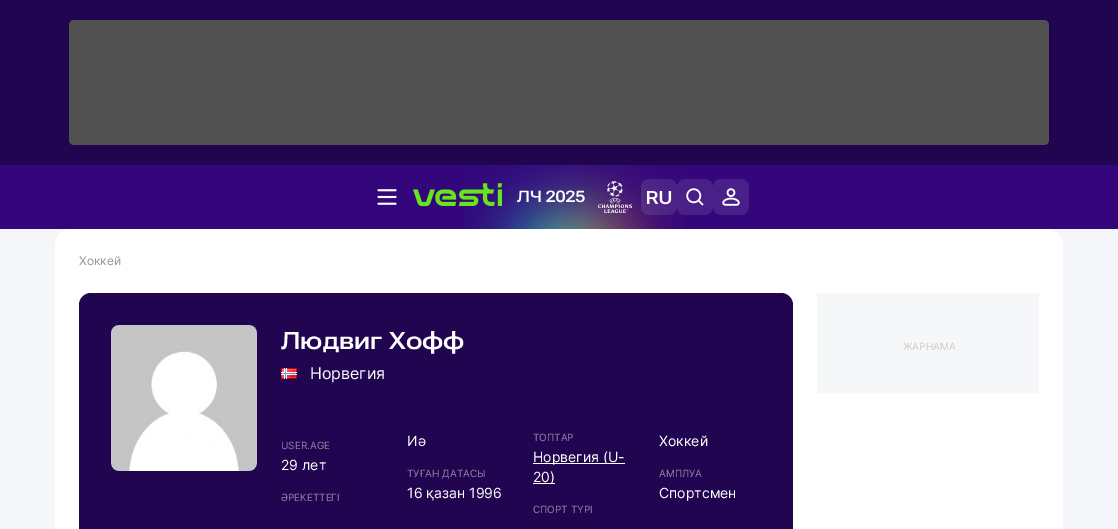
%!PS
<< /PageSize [1118 529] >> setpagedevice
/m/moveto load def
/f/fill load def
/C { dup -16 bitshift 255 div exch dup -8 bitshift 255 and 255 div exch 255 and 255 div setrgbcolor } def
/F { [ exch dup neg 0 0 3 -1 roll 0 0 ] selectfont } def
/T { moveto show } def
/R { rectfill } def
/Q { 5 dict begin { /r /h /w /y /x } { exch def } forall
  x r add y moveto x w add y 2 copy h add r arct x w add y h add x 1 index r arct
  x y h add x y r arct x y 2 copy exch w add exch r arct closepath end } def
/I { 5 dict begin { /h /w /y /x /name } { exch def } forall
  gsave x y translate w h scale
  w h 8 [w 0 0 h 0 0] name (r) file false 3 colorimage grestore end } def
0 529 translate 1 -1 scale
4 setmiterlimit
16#F4F6FA C
0 0 1118 529 R
16#210550 C
0 0 1118 165 R
16#515151 C
69 20 980 125 5 Q f
16#33077B C
0 165 1118 64 R
(1.rgb) 377 189 20 16 I
(5.rgb) 677 179 36 36 I
(3.rgb) 464 165 220 64 I
(2.rgb) 413 183 89 24 I
(4.rgb) 641 179 36 36 I
(6.rgb) 713 179 36 36 I
16#FFFFFF C
55 229 1008 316 16 Q f
/Inter-Regular 12 F
16#94969C C
(Хоккей) 79 265 T
16#210550 C
79 293 714 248 12 Q f
(7.rgb) 111 325 146 146 I
/RobotoFlex-SemiBold 24 F
16#FFFFFF C
281 349 m 1 0 32 (Людвиг Хофф) widthshow
(8.rgb) 281 368 16 11 I
/Inter-Regular 16 F
(Норвегия) 310 379 T
/Inter-Regular 14 F
(Иә) 407 446 T
/Inter-Regular 10 F
16#9082A7 C
(ӘРЕКЕТТЕГІ) 281 501 T
(ТОПТАР) 533 441 T
16#FFFFFF C
533 463 92 1 R
/Inter-Regular 14 F
(Норвегия \(U-) 533 462 T
533 483 22 1 R
(20\)) 533 482 T
/Inter-Regular 10 F
16#9082A7 C
(USER.AGE) 281 449 T
/Inter-Regular 14 F
16#FFFFFF C
(29 лет) 281 470 T
(Хоккей) 659 446 T
/Inter-Regular 10 F
16#9082A7 C
(СПОРТ ТҮРІ) 533 513 T
(ТУҒАН ДАТАСЫ) 407 477 T
/Inter-Regular 14 F
16#FFFFFF C
(16 қазан 1996) 407 498 T
/Inter-Regular 10 F
16#9082A7 C
(АМПЛУА) 659 477 T
/Inter-Regular 14 F
16#FFFFFF C
(Спортсмен) 659 498 T
16#F6F7F8 C
817 293 222 100 R
/Inter-Regular 10 F
16#CCCCCC C
(ЖАРНАМА) 903 350 T
showpage
